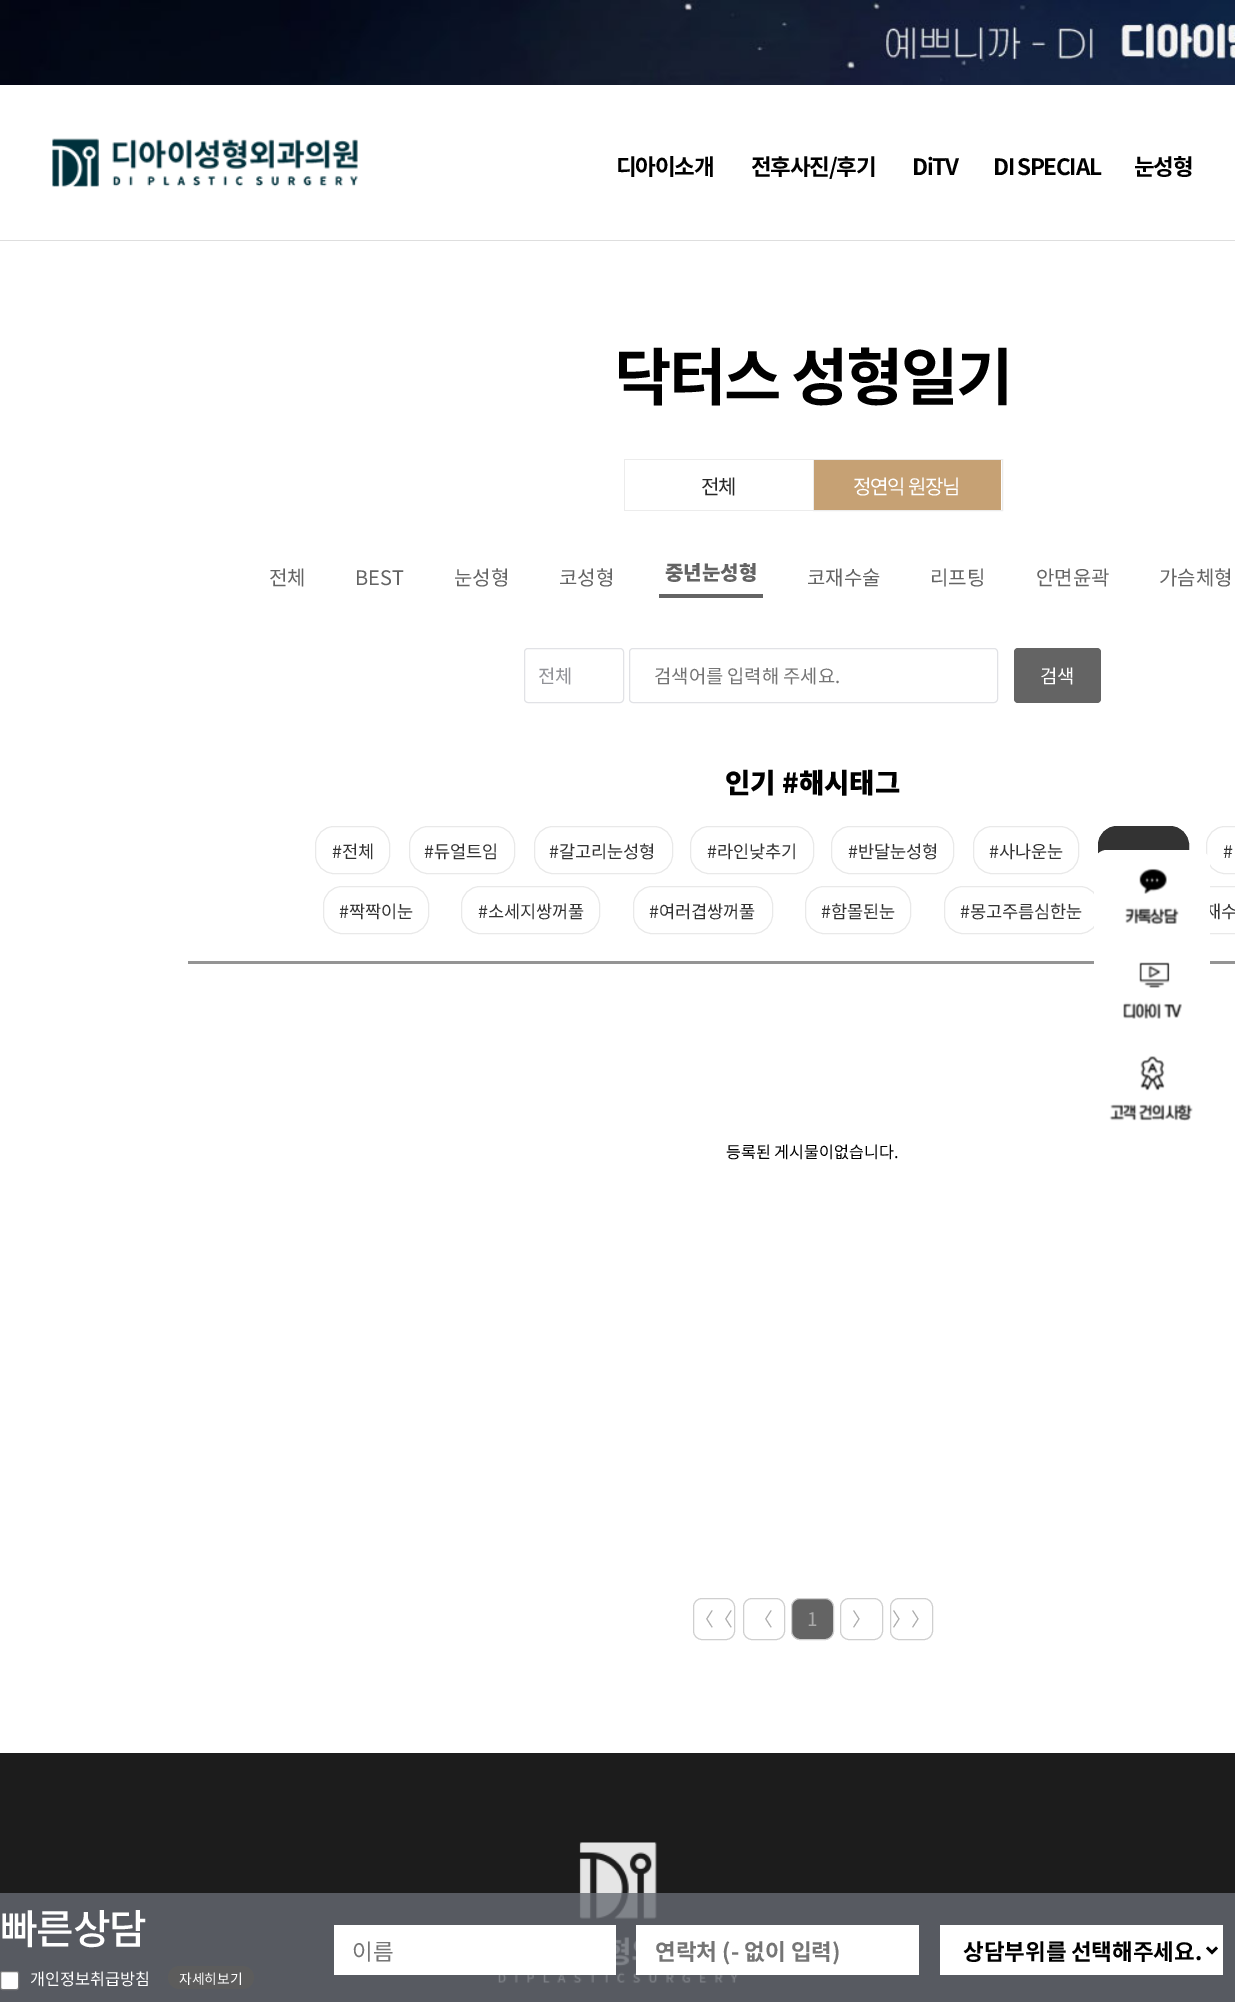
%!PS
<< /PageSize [1235 2002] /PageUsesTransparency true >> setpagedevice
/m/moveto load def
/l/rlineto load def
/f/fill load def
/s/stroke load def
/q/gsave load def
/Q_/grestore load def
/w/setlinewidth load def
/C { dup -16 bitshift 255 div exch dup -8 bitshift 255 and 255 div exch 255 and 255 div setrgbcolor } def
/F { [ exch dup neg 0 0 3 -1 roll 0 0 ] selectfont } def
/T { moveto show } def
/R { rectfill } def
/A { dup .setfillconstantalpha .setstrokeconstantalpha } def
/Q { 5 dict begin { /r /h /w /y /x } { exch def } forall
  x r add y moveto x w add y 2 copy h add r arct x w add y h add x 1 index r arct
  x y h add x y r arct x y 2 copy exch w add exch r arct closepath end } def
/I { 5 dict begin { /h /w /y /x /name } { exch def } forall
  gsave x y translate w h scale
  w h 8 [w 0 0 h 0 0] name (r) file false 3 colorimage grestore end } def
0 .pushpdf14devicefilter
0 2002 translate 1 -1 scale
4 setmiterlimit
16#FFFFFF C
0 0 1235 2002 R
16#DEDEDE C
0 240 1235 1 R
(1.rgb) 0 0 1235 85 I
(2.rgb) 52 138 306 49 I
/NotoSansKR-Bold 22.5 F
16#000000 C
616 175 m -1.25 0 (디아이소개) ashow
751 175 m -1.25 0 (전후사진/후기) ashow
912 175 m -1.25 0 (DiTV) ashow
993 175 m -1 0 32 -1.25 0 (DI SPECIAL) awidthshow
1134 175 m -1.25 0 (눈성형) ashow
/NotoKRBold-Bold 62.5 F
614 400 m -2.5 0 (닥터스 성형일기) ashow
16#ECECEC C
624 459 189 1 R
624 510 189 1 R
624 459 1 52 R
/NotoSansKR-Regular 20 F
16#282828 C
701 494 m -1.25 0 (전체) ashow
16#ECECEC C
813.5 459.5 189 51 rectstroke
16#C6A174 C
814 460 187 50 R
16#FFFFFF C
853 494 m -1.25 0 (정연익 원장님) ashow
16#646464 C
(전체) 269 585 T
(BEST) 355 585 T
(눈성형) 454 585 T
(코성형) 559 585 T
659 594 104 4 R
/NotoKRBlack-Black 20 F
(중년눈성형) 665 580 T
/NotoSansKR-Regular 20 F
(코재수술) 807 585 T
(리프팅) 930 585 T
(안면윤곽) 1036 585 T
(가슴체형) 1159 585 T
16#E1E2E6 C
524.5 648.5 99 54 3.5 Q s
/NotoSansKR-Regular 18.75 F
16#929398 C
(전체) 538 683 T
16#E1E2E6 C
629.5 648.5 368 54 3.5 Q s
16#757575 C
(검색어를 입력해 주세요.) 654 683 T
16#646464 C
1014 648 87 55 4 Q f
16#FFFFFF C
(검색) 1040 683 T
/NotoKRBlack-Black 27.5 F
16#000000 C
(인기 #해시태그) 725 793 T
16#E9E9E9 C
315.5 826.5 74 47 18.5 Q s
/NotoSansKR-Regular 17.5 F
16#333333 C
(#전체) 332 858 T
16#E9E9E9 C
409.5 826.5 105 47 18.5 Q s
16#333333 C
(#듀얼트임) 424 858 T
16#E9E9E9 C
534.5 826.5 138 47 18.5 Q s
16#333333 C
(#갈고리눈성형) 549 858 T
16#E9E9E9 C
690.5 826.5 123 47 18.5 Q s
16#333333 C
(#라인낮추기) 707 858 T
16#E9E9E9 C
831.5 826.5 122 47 18.5 Q s
16#333333 C
(#반달눈성형) 848 858 T
16#E9E9E9 C
973.5 826.5 105 47 18.5 Q s
16#333333 C
(#사나운눈) 989 858 T
1098.5 826.5 90 47 18.5 Q q f Q_
s
16#E9E9E9 C
1206.5 826.5 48 47 18.5 Q s
16#333333 C
(#) 1223 858 T
16#E9E9E9 C
323.5 886.5 105 47 18.5 Q s
16#333333 C
(#짝짝이눈) 339 918 T
16#E9E9E9 C
461.5 886.5 138 47 18.5 Q s
16#333333 C
(#소세지쌍꺼풀) 478 918 T
16#E9E9E9 C
633.5 886.5 139 47 18.5 Q s
16#333333 C
(#여러겹쌍꺼풀) 649 918 T
16#E9E9E9 C
805.5 886.5 105 47 18.5 Q s
16#333333 C
(#함몰된눈) 821 918 T
16#E9E9E9 C
944.5 886.5 154 47 18.5 Q s
16#333333 C
(#몽고주름심한눈) 960 918 T
16#E9E9E9 C
1131.5 886.5 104 47 rectstroke
16#333333 C
(재수) 1205 918 T
16#949494 C
188 961 1047 3 R
/NotoSansKR-Regular 16.25 F
16#000000 C
(등록된 게시물이없습니다.) 726 1158 T
16#CFCFCF C
693.5 1598.5 41 41 8.5 Q s
/NotoSansKR-Regular 18.75 F
16#AAAAAA C
(〈〈) 695 1626 T
16#CFCFCF C
743.5 1598.5 41 41 8.5 Q s
16#AAAAAA C
(〈) 754 1626 T
16#646464 C
791.5 1598.5 42 41 8.5 Q q f Q_
16#CFCFCF C
s
16#AAAAAA C
(1) 807 1626 T
16#CFCFCF C
840.5 1598.5 42 41 8.5 Q s
16#AAAAAA C
(〉) 852 1626 T
16#CFCFCF C
890.5 1598.5 42 41 8.5 Q s
16#AAAAAA C
(〉〉) 892 1626 T
16#FFFFFF C
1094 850 116 386 13 Q f
(3.rgb) 1125 868 54 57 I
(4.rgb) 1123 962 59 57 I
(5.rgb) 1109 1056 84 65 I
16#1C1C1C C
0 1753 1235 249 R
(6.rgb) 498 1842 240 141 I
0.8 A
16#666A72 C
0 1893 1235 109 R
/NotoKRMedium-Medium 41 F
1 A
16#FFFFFF C
0 1944 m -1.25 0 (빠른상담) ashow
.5 1971.5 18 18 2 Q q f Q_
16#767676 C
s
/NotoSansKR-Regular 16.25 F
16#FFFFFF C
(개인정보취급방침) 30 1985 T
16#5C5C5C C
168 1966 86 23 11.5 Q f
/NotoSansKR-Regular 13.75 F
16#FFFFFF C
(자세히보기) 179 1984 T
334 1925 282 50 R
/NotoSansKR-Regular 22.5 F
16#757575 C
(이름) 352 1960 T
16#FFFFFF C
636 1925 283 50 R
/NotoSansKR-Bold 22.5 F
16#757575 C
(연락처 \(- 없이 입력\)) 655 1960 T
16#FFFFFF C
940 1925 283 50 R
16#000000 C
2.5 w
1207 1947.5 m 5 5 l 5 -5 l s
963 1960 m -1 0 32 (상담부위를 선택해주세요.) widthshow
.poppdf14devicefilter showpage
